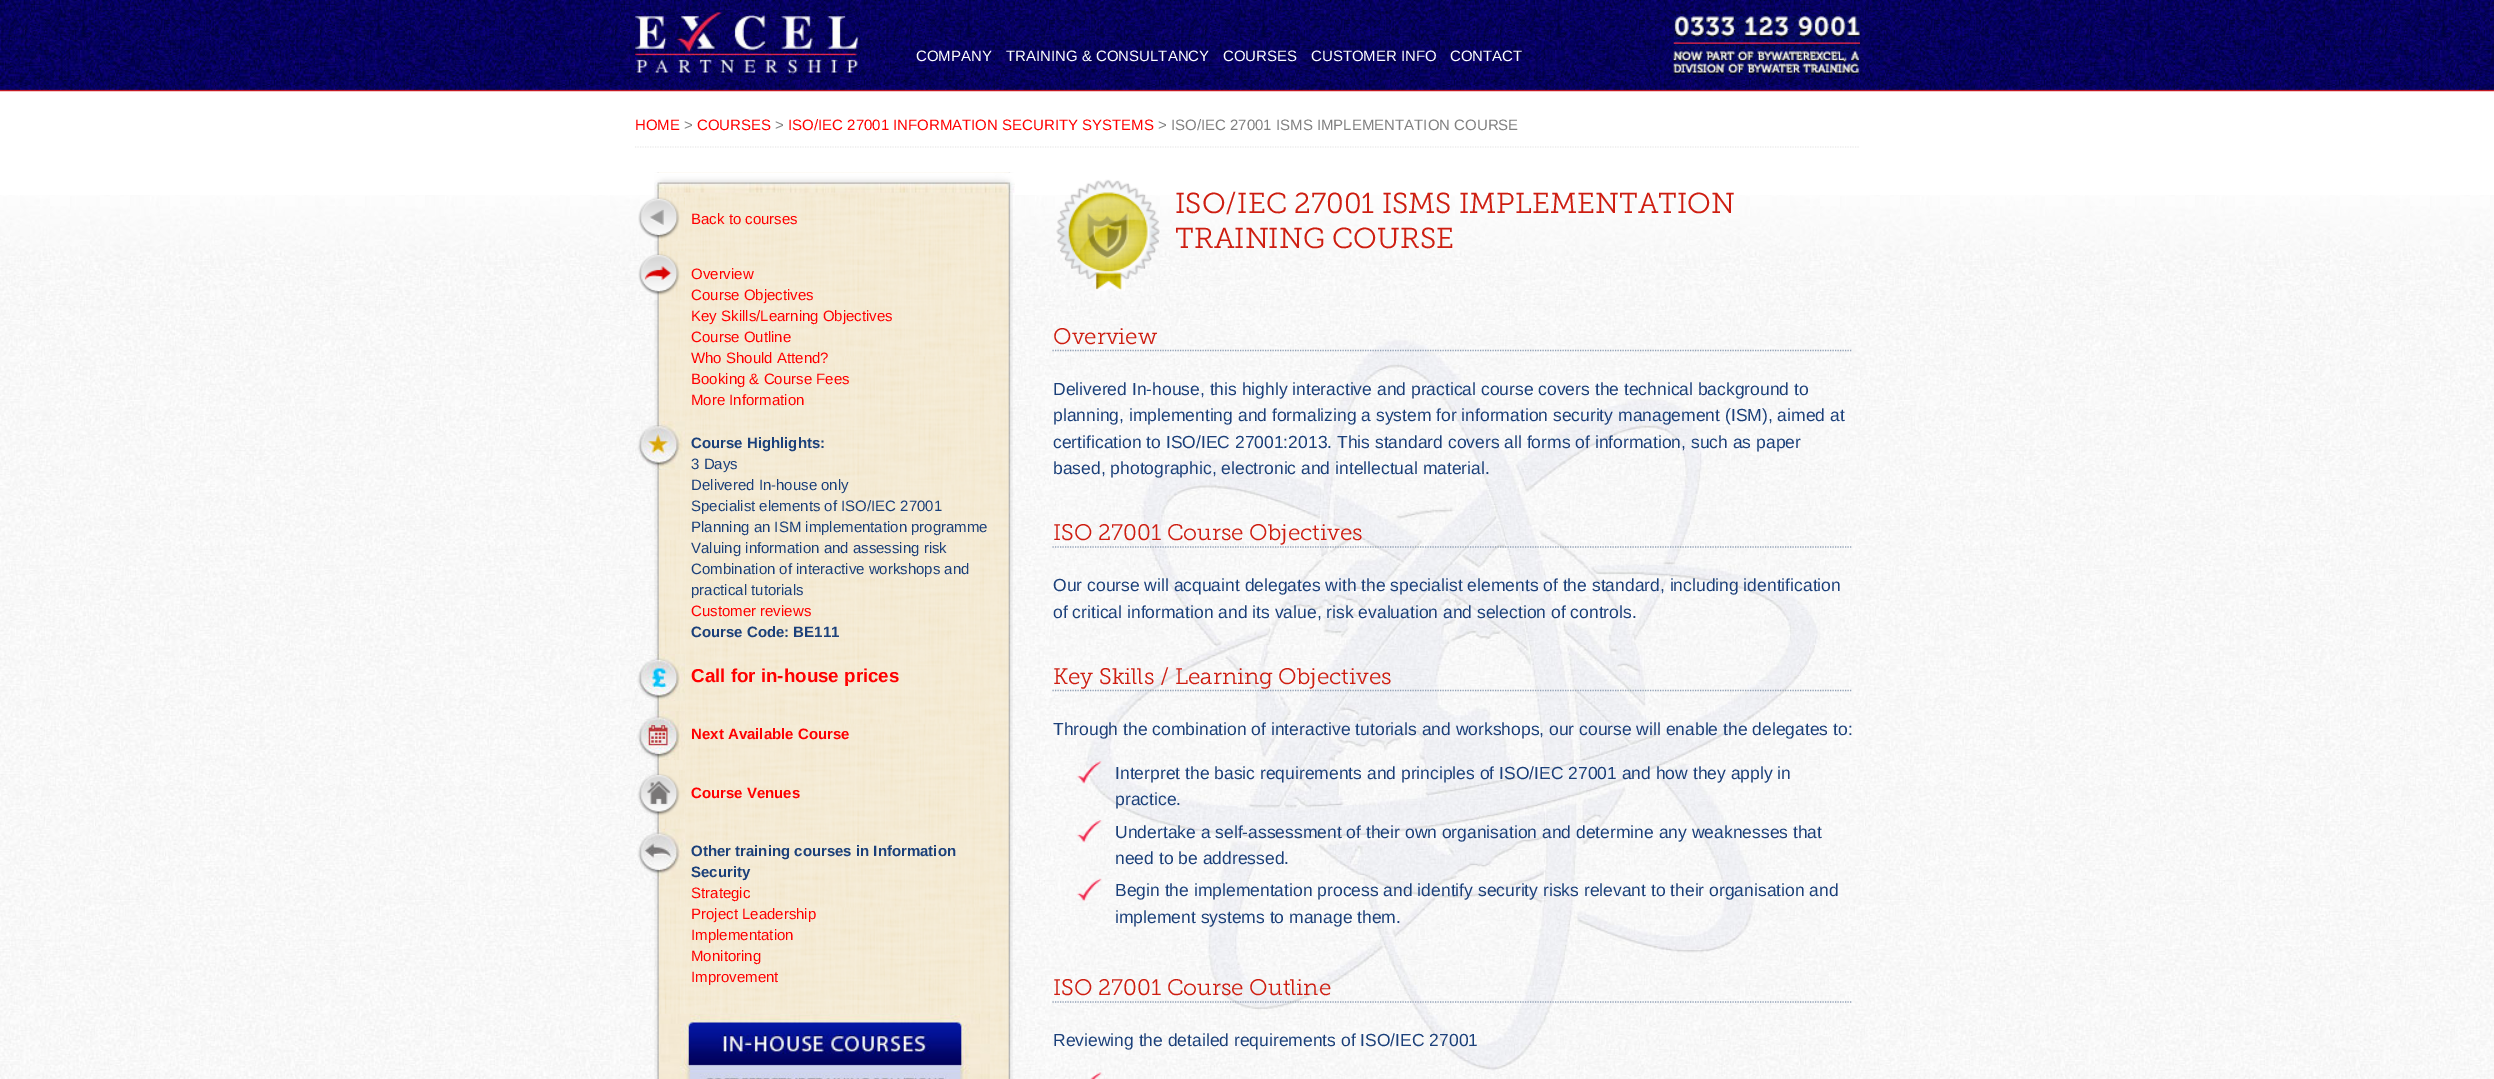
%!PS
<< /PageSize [2494 1079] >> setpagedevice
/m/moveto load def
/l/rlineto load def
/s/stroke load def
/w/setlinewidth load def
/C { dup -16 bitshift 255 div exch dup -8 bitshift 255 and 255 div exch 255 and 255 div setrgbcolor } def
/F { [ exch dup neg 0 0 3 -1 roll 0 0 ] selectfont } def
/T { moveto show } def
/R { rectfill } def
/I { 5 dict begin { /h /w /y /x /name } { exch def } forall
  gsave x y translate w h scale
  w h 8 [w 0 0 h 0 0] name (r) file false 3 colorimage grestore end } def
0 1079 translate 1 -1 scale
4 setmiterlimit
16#FFFFFF C
0 0 2494 1079 R
(1.rgb) 0 0 2494 92 I
(2.rgb) 635 12 225 65 I
(3.rgb) 1673 16 187 59 I
/LiberationSans-Regular 15 F
(COMPANY) 916 61 T
(TRAINING & CONSULTANCY) 1006 61 T
(COURSES) 1223 61 T
(CUSTOMER INFO) 1311 61 T
(CONTACT) 1450 61 T
(4.rgb) 0 195 2494 884 I
16#EDEDED C
1.2 w
[1.25 1.25] 0 setdash
635 147 m 1225 0 l s
16#FF0000 C
(HOME) 635 130 T
16#808080 C
(>) 684 130 T
16#FF0000 C
(COURSES) 697 130 T
16#808080 C
(>) 775 130 T
16#FF0000 C
(ISO/IEC 27001 INFORMATION SECURITY SYSTEMS) 788 130 T
16#808080 C
(> ISO/IEC 27001 ISMS IMPLEMENTATION COURSE) 1158 130 T
(5.rgb) 654 172 359 907 I
(6.rgb) 654 172 361 21 I
(7.rgb) 638 197 47 44 I
16#FF0000 C
(Back to courses) 691 224 T
(8.rgb) 638 251 47 49 I
(Overview) 691 279 T
(Course Objectives) 691 300 T
(Key Skills/Learning Objectives) 691 321 T
(Course Outline) 691 342 T
(Who Should Attend?) 691 363 T
(Booking & Course Fees) 691 384 T
(More Information) 691 405 T
(9.rgb) 635 421 50 49 I
/LiberationSans-Bold 15 F
16#1B407A C
(Course Highlights:) 691 448 T
/LiberationSans-Regular 15 F
(3 Days) 691 469 T
(Delivered In-house only) 691 490 T
(Specialist elements of ISO/IEC 27001) 691 511 T
(Planning an ISM implementation programme) 691 532 T
(Valuing information and assessing risk) 691 553 T
(Combination of interactive workshops and) 691 574 T
(practical tutorials) 691 595 T
16#FF0000 C
(Customer reviews) 691 616 T
/LiberationSans-Bold 15 F
16#1B407A C
(Course Code: BE111) 691 637 T
(10.rgb) 635 654 50 47 I
/LiberationSans-Bold 18.75 F
16#FF0000 C
(Call for in-house prices) 691 682 T
(11.rgb) 635 711 50 49 I
/LiberationSans-Bold 15 F
(Next Available Course) 691 739 T
(12.rgb) 635 770 50 49 I
(Course Venues) 691 798 T
(13.rgb) 635 828 50 51 I
16#1B407A C
(Other training courses in Information) 691 856 T
(Security) 691 877 T
/LiberationSans-Regular 15 F
16#FF0000 C
(Strategic) 691 898 T
(Project Leadership) 691 919 T
(Implementation) 691 940 T
(Monitoring) 691 961 T
(Improvement) 691 982 T
(14.rgb) 660 1013 330 66 I
(15.rgb) 1077 335 752 744 I
(16.rgb) 1056 179 104 112 I
/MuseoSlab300-Light 28.75 F
16#CE1D10 C
(ISO/IEC 27001 ISMS IMPLEMENTATION) 1175 213 T
(TRAINING COURSE) 1175 248 T
16#92A1B6 C
1052.5 350.5 m 800 0 l s
/MuseoSlab300-Light 22.5 F
16#CE1D10 C
(Overview) 1053 344 T
/LiberationSans-Regular 17.5 F
16#1B407A C
(Delivered In-house, this highly interactive and practical course covers the technical background to) 1053 395 T
(planning, implementing and formalizing a system for information security management \(ISM\), aimed at) 1053 421 T
(certification to ISO/IEC 27001:2013. This standard covers all forms of information, such as paper) 1053 448 T
(based, photographic, electronic and intellectual material.) 1053 474 T
16#92A1B6 C
1052.5 547 m 800 0 l s
/MuseoSlab300-Light 22.5 F
16#CE1D10 C
(ISO 27001 Course Objectives) 1053 540 T
/LiberationSans-Regular 17.5 F
16#1B407A C
(Our course will acquaint delegates with the specialist elements of the standard, including identification) 1053 591 T
(of critical information and its value, risk evaluation and selection of controls.) 1053 618 T
16#92A1B6 C
1052.5 690.5 m 800 0 l s
/MuseoSlab300-Light 22.5 F
16#CE1D10 C
(Key Skills / Learning Objectives) 1053 684 T
/LiberationSans-Regular 17.5 F
16#1B407A C
(Through the combination of interactive tutorials and workshops, our course will enable the delegates to:) 1053 735 T
(17.rgb) 1077 761 25 23 I
(Interpret the basic requirements and principles of ISO/IEC 27001 and how they apply in) 1115 779 T
(practice.) 1115 805 T
(18.rgb) 1077 820 25 23 I
(Undertake a self-assessment of their own organisation and determine any weaknesses that) 1115 838 T
(need to be addressed.) 1115 864 T
(19.rgb) 1077 878 25 24 I
(Begin the implementation process and identify security risks relevant to their organisation and) 1115 896 T
(implement systems to manage them.) 1115 923 T
16#92A1B6 C
1052.5 1002 m 800 0 l s
/MuseoSlab300-Light 22.5 F
16#CE1D10 C
(ISO 27001 Course Outline) 1053 995 T
/LiberationSans-Regular 17.5 F
16#1B407A C
(Reviewing the detailed requirements of ISO/IEC 27001) 1053 1046 T
(20.rgb) 1090 1072 12 7 I
showpage
